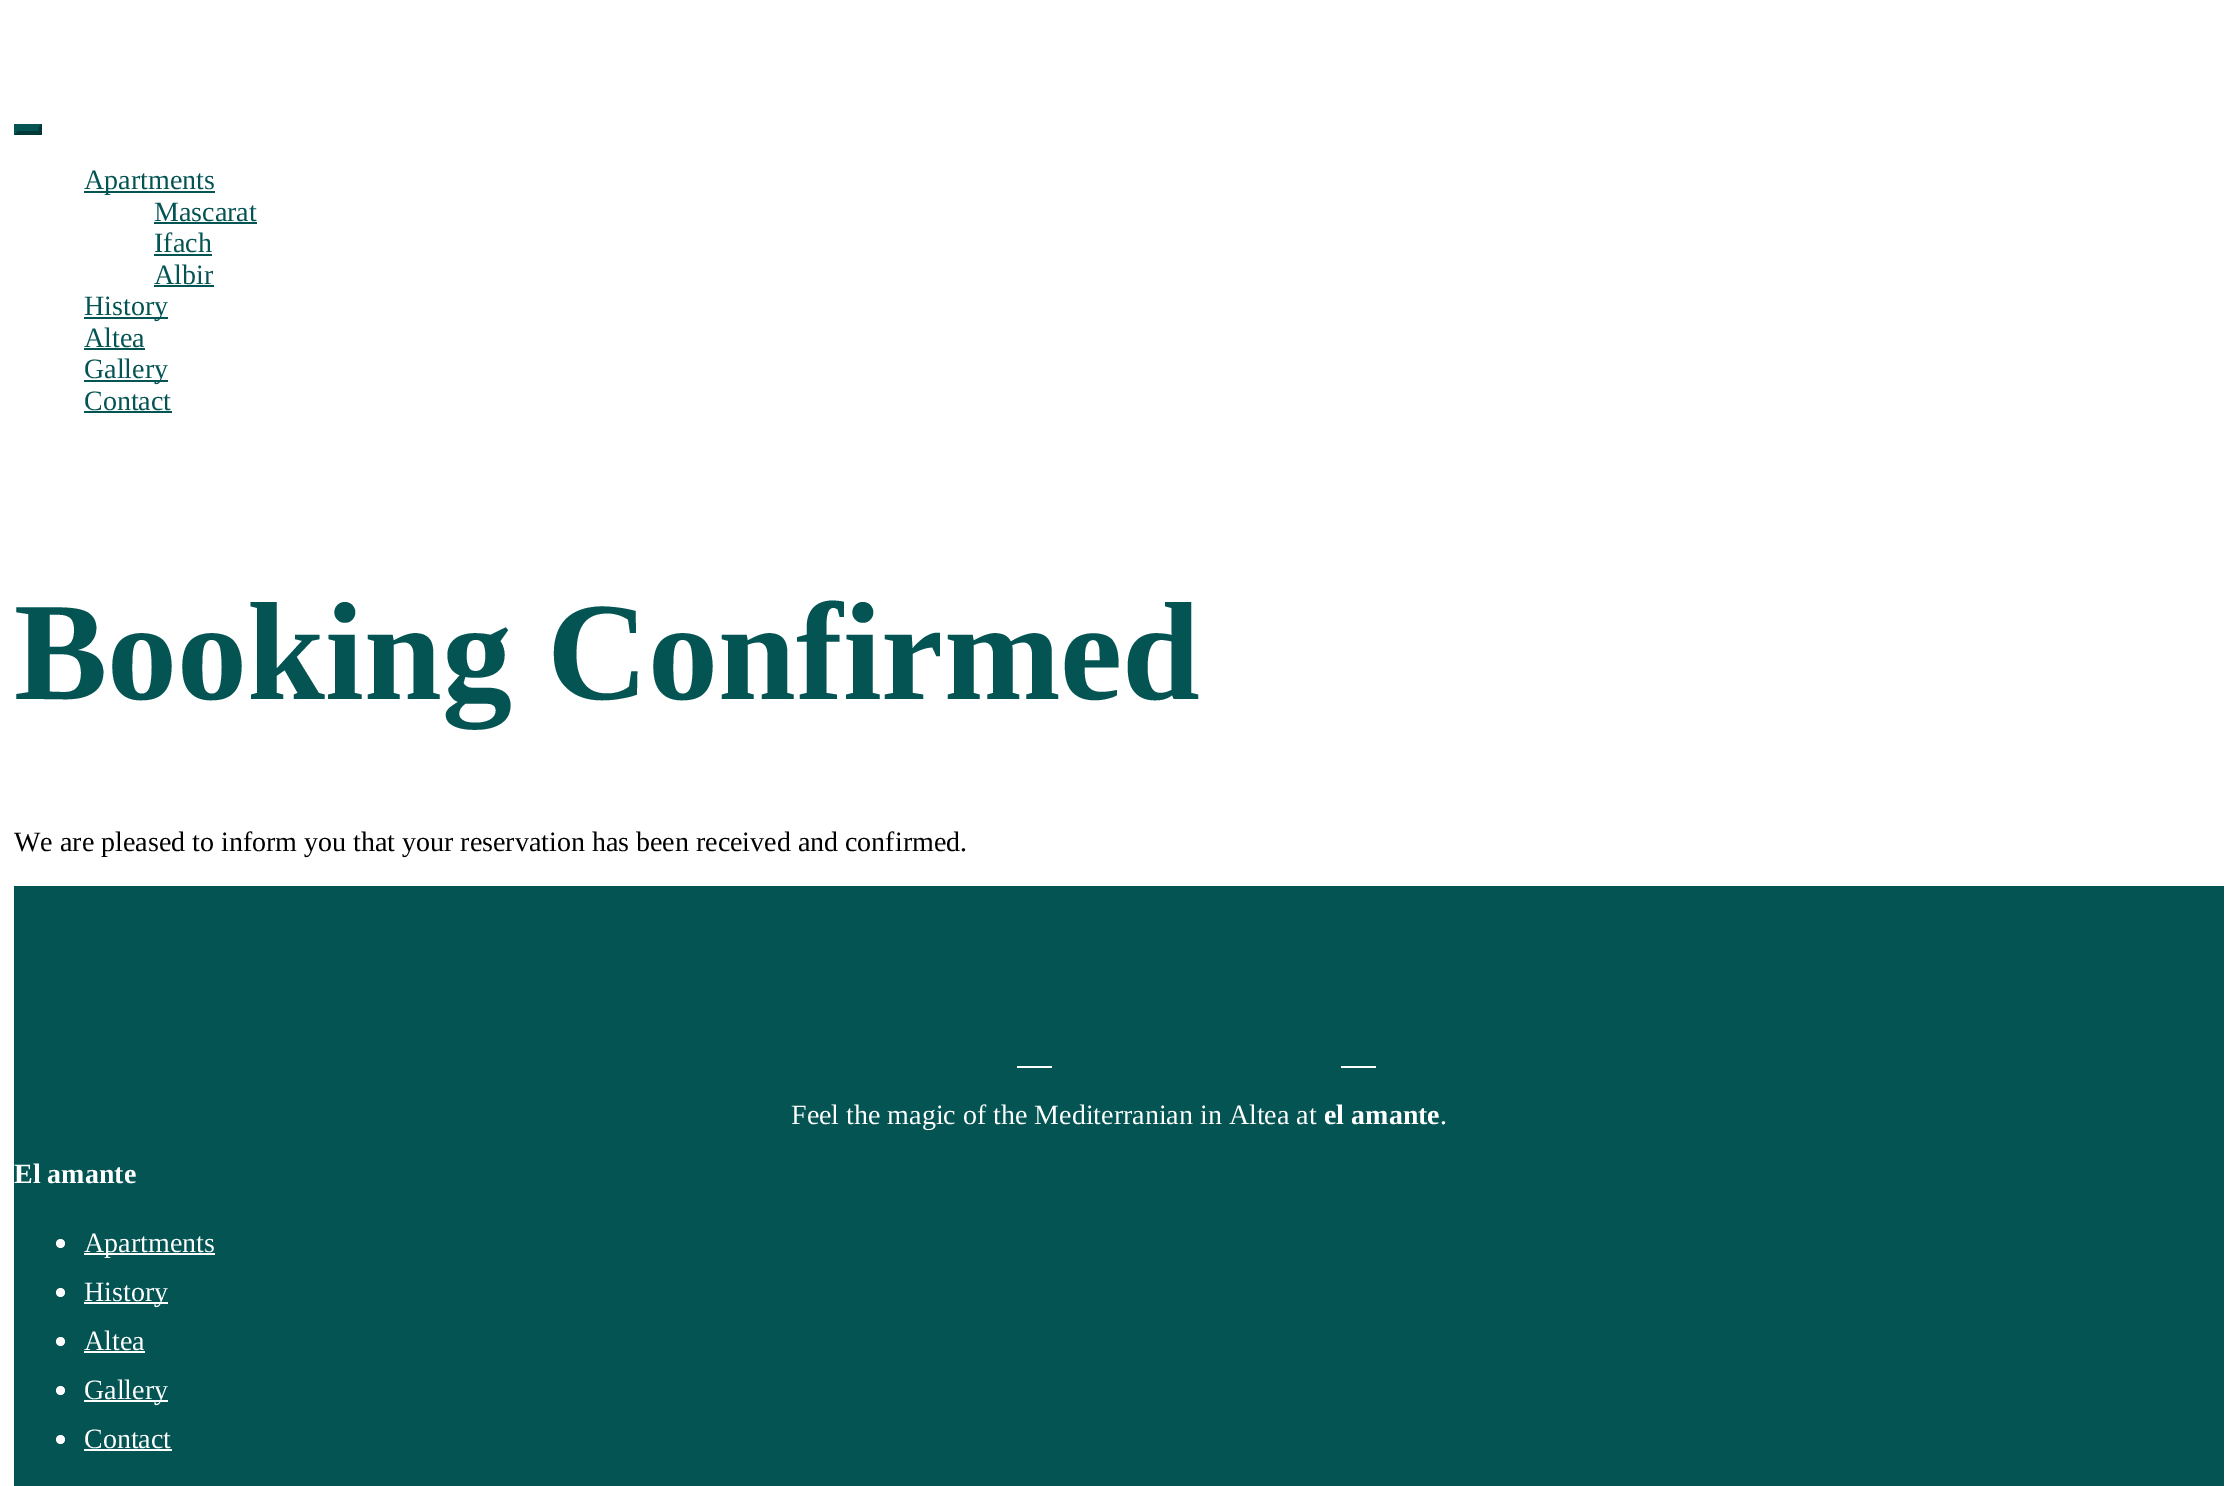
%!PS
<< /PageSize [2238 1486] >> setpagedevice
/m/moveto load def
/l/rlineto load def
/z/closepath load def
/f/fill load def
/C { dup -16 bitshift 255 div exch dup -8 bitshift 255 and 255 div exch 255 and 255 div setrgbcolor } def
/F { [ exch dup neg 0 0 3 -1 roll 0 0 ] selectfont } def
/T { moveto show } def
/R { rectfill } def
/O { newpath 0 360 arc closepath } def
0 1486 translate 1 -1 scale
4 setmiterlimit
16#FFFFFF C
0 0 2238 1486 R
16#035453 C
14 124 28 11 R
16#023837 C
42 124 m 0 11 l -3.5 -4 l 0 -3 l z f
42 135 m -28 0 l 3.5 -4 l 21 0 l z f
16#035453 C
14 135 m 0 -11 l 3.5 4 l 0 3 l z f
84 191 131 2 R
/LiberationSerif-Regular 28 F
(Apartments) 84 189 T
(Mascarat) 154 221 T
154 222 103 2 R
(Ifach) 154 252 T
154 254 58 2 R
(Albir) 154 284 T
154 285 60 2 R
84 317 84 2 R
(History) 84 315 T
(Altea) 84 347 T
84 348 61 2 R
84 380 84 2 R
(Gallery) 84 378 T
(Contact) 84 410 T
84 411 88 2 R
/LiberationSerif-Bold 140 F
(Booking Confirmed) 14 699 T
/LiberationSerif-Regular 28 F
16#000000 C
(We are pleased to inform you that your reservation has been received and confirmed.) 14 851 T
16#035453 C
14 886 2210 600 R
16#FFFFFF C
1017 1066 35 2 R
1341 1066 35 2 R
(Feel the magic of the Mediterranian in Altea at) 791 1124 T
/LiberationSerif-Bold 28 F
(el amante) 1324 1124 T
/LiberationSerif-Regular 28 F
(.) 1440 1124 T
/LiberationSerif-Bold 28 F
(El amante) 14 1183 T
60.5 1243.5 4.5 O f
84 1253 131 2 R
/LiberationSerif-Regular 28 F
(Apartments) 84 1252 T
60.5 1292.5 4.5 O f
84 1302 84 2 R
(History) 84 1301 T
60.5 1341.5 4.5 O f
(Altea) 84 1350 T
84 1351 61 2 R
60.5 1390.5 4.5 O f
84 1400 84 2 R
(Gallery) 84 1399 T
60.5 1439.5 4.5 O f
(Contact) 84 1448 T
84 1449 88 2 R
showpage
